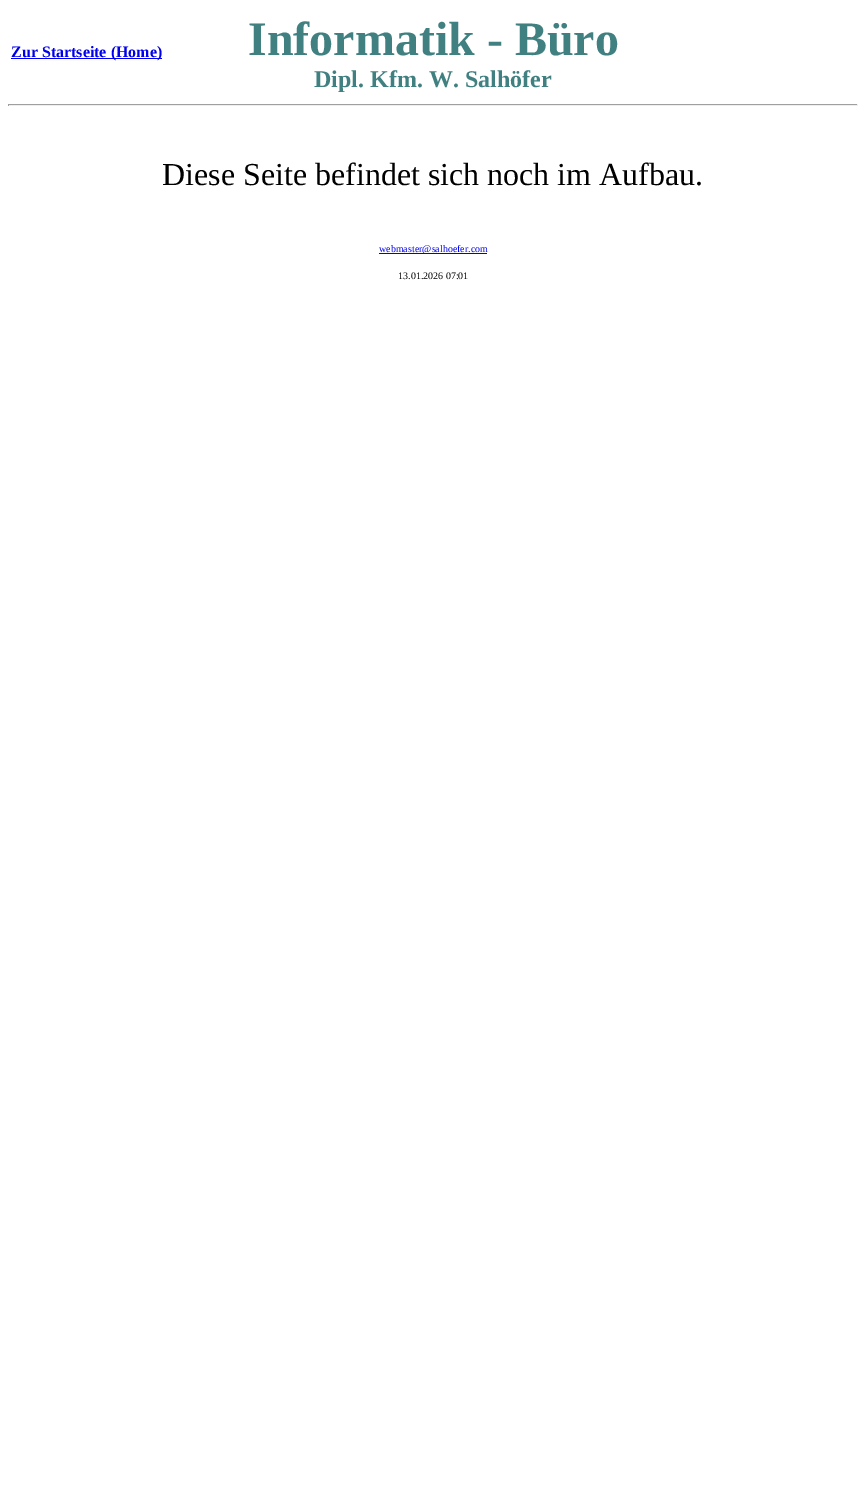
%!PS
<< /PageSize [866 1488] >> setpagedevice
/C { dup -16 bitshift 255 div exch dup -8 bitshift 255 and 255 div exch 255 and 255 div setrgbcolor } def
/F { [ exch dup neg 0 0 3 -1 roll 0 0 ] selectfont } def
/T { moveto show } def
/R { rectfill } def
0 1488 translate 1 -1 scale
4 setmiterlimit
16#FFFFFF C
0 0 866 1488 R
16#0000EE C
11 58 151 1 R
/LiberationSerif-Bold 16 F
(Zur Startseite \(Home\)) 11 57 T
/LiberationSerif-Bold 48 F
16#408080 C
(Informatik - Büro) 248 55 T
/LiberationSerif-Bold 24 F
(Dipl. Kfm. W. Salhöfer) 314 87 T
16#9F9F9F C
8 104 850 1 R
16#EEEEEE C
857 104 1 2 R
8 105 850 1 R
16#9F9F9F C
8 104 1 2 R
/LiberationSerif-Regular 32 F
16#000000 C
(Diese Seite befindet sich noch im Aufbau.) 162 185 T
16#0000EE C
379 253 108 1 R
/LiberationSerif-Regular 10 F
(webmaster@salhoefer.com) 379 252 T
16#000000 C
(13.01.2026 07:01) 398 279 T
showpage
